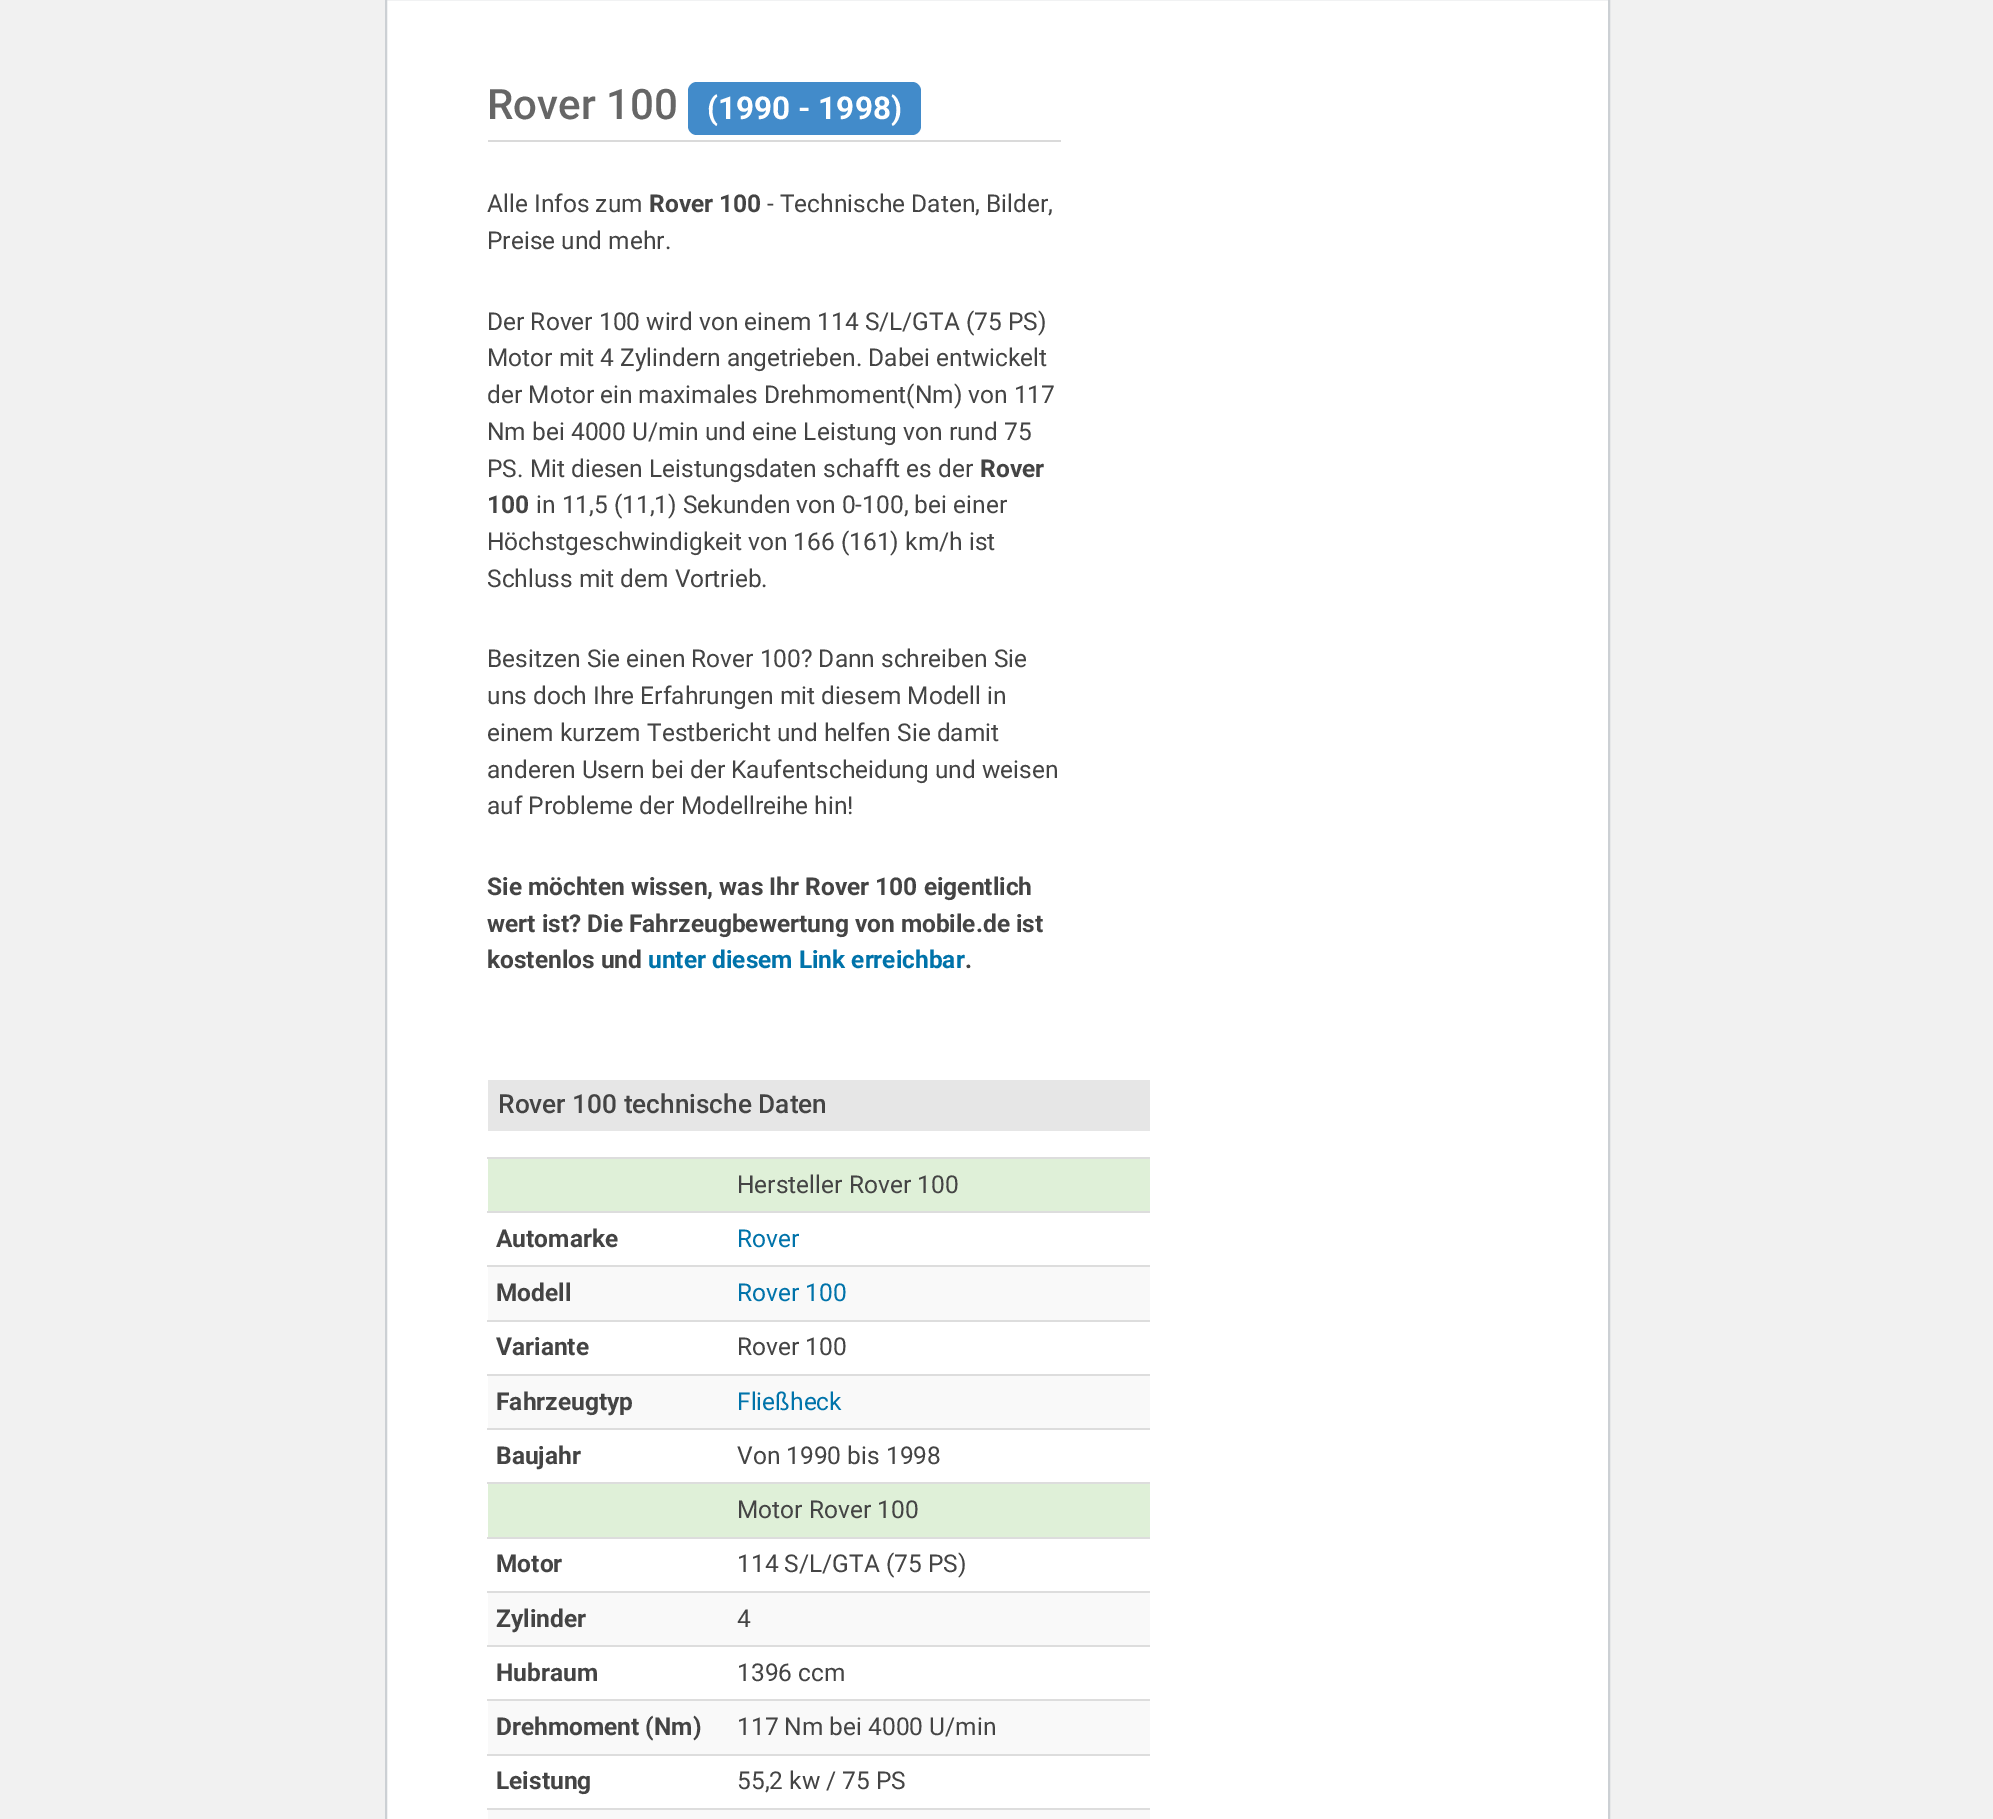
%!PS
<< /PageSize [1993 1819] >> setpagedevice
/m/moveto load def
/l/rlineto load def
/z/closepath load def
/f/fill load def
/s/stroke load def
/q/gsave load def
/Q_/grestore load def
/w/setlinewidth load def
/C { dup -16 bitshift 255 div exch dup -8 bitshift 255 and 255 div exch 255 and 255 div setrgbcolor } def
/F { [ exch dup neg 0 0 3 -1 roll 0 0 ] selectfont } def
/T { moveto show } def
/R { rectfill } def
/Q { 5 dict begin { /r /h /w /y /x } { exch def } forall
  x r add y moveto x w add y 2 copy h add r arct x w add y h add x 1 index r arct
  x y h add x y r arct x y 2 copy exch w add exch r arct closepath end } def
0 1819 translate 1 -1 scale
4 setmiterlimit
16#F1F1F1 C
0 0 1993 1819 R
16#FFFFFF C
386 -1 m 1223 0 l 0 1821 l -1223 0 l z q f Q_
16#CCD0D4 C
2 w
s
16#DADADA C
488 140 573 2 R
/Roboto-Medium 42 F
16#666666 C
(Rover 100) 487 119 T
16#428BCA C
688 82 233 53 9 Q f
/Roboto-Bold 31.5 F
16#FFFFFF C
(\(1990 - 1998\)) 707 119 T
/Roboto-Regular 24.5 F
16#444444 C
(Alle Infos zum) 487 212 T
/Roboto-Bold 24.5 F
(Rover 100) 649 212 T
/Roboto-Regular 24.5 F
(- Technische Daten, Bilder,) 767 212 T
(Preise und mehr.) 487 249 T
(Der Rover 100 wird von einem 114 S/L/GTA \(75 PS\)) 487 330 T
(Motor mit 4 Zylindern angetrieben. Dabei entwickelt) 487 366 T
(der Motor ein maximales Drehmoment\(Nm\) von 117) 487 403 T
(Nm bei 4000 U/min und eine Leistung von rund 75) 487 440 T
(PS. Mit diesen Leistungsdaten schafft es der) 487 477 T
/Roboto-Bold 24.5 F
(Rover) 980 477 T
(100) 487 513 T
/Roboto-Regular 24.5 F
(in 11,5 \(11,1\) Sekunden von 0-100, bei einer) 536 513 T
(Höchstgeschwindigkeit von 166 \(161\) km/h ist) 487 550 T
(Schluss mit dem Vortrieb.) 487 587 T
(Besitzen Sie einen Rover 100? Dann schreiben Sie) 487 667 T
(uns doch Ihre Erfahrungen mit diesem Modell in) 487 704 T
(einem kurzem Testbericht und helfen Sie damit) 487 741 T
(anderen Usern bei der Kaufentscheidung und weisen) 487 778 T
(auf Probleme der Modellreihe hin!) 487 814 T
/Roboto-Bold 24.5 F
(Sie möchten wissen, was Ihr Rover 100 eigentlich) 487 895 T
(wert ist? Die Fahrzeugbewertung von mobile.de ist) 487 932 T
(kostenlos und) 487 968 T
16#0073AA C
(unter diesem Link erreichbar) 648 968 T
16#444444 C
(.) 965 968 T
16#E6E6E6 C
488 1080 662 51 R
/Roboto-Medium 26.25 F
16#444444 C
(Rover 100 technische Daten) 498 1113 T
16#DFF0D8 C
488 1159 662 52 R
16#DDDDDD C
487 1157 663 2 R
/Roboto-Regular 24.5 F
16#444444 C
(Hersteller Rover 100) 737 1193 T
/Roboto-Bold 24.5 F
(Automarke) 496 1247 T
16#DDDDDD C
487 1211 663 2 R
/Roboto-Regular 24.5 F
16#0073AA C
(Rover) 737 1247 T
16#F9F9F9 C
488 1267 662 53 R
/Roboto-Bold 24.5 F
16#444444 C
(Modell) 496 1301 T
16#DDDDDD C
487 1265 663 2 R
/Roboto-Regular 24.5 F
16#0073AA C
(Rover 100) 737 1301 T
/Roboto-Bold 24.5 F
16#444444 C
(Variante) 496 1355 T
16#DDDDDD C
487 1320 663 2 R
/Roboto-Regular 24.5 F
16#444444 C
(Rover 100) 737 1355 T
16#F9F9F9 C
488 1376 662 52 R
/Roboto-Bold 24.5 F
16#444444 C
(Fahrzeugtyp) 496 1410 T
16#DDDDDD C
487 1374 663 2 R
/Roboto-Regular 24.5 F
16#0073AA C
(Fließheck) 737 1410 T
/Roboto-Bold 24.5 F
16#444444 C
(Baujahr) 496 1464 T
16#DDDDDD C
487 1428 663 2 R
/Roboto-Regular 24.5 F
16#444444 C
(Von 1990 bis 1998) 737 1464 T
16#DFF0D8 C
488 1484 662 53 R
16#DDDDDD C
487 1482 663 2 R
16#444444 C
(Motor Rover 100) 737 1518 T
/Roboto-Bold 24.5 F
(Motor) 496 1572 T
16#DDDDDD C
487 1537 663 2 R
/Roboto-Regular 24.5 F
16#444444 C
(114 S/L/GTA \(75 PS\)) 737 1572 T
16#F9F9F9 C
488 1593 662 52 R
/Roboto-Bold 24.5 F
16#444444 C
(Zylinder) 496 1627 T
16#DDDDDD C
487 1591 663 2 R
/Roboto-Regular 24.5 F
16#444444 C
(4) 737 1627 T
/Roboto-Bold 24.5 F
(Hubraum) 496 1681 T
16#DDDDDD C
487 1645 663 2 R
/Roboto-Regular 24.5 F
16#444444 C
(1396 ccm) 737 1681 T
16#F9F9F9 C
488 1701 662 53 R
/Roboto-Bold 24.5 F
16#444444 C
(Drehmoment \(Nm\)) 496 1735 T
16#DDDDDD C
487 1699 663 2 R
/Roboto-Regular 24.5 F
16#444444 C
(117 Nm bei 4000 U/min) 737 1735 T
/Roboto-Bold 24.5 F
(Leistung) 496 1789 T
16#DDDDDD C
487 1754 663 2 R
/Roboto-Regular 24.5 F
16#444444 C
(55,2 kw / 75 PS) 737 1789 T
16#DDDDDD C
487 1808 663 2 R
16#F9F9F9 C
488 1810 662 9 R
showpage
